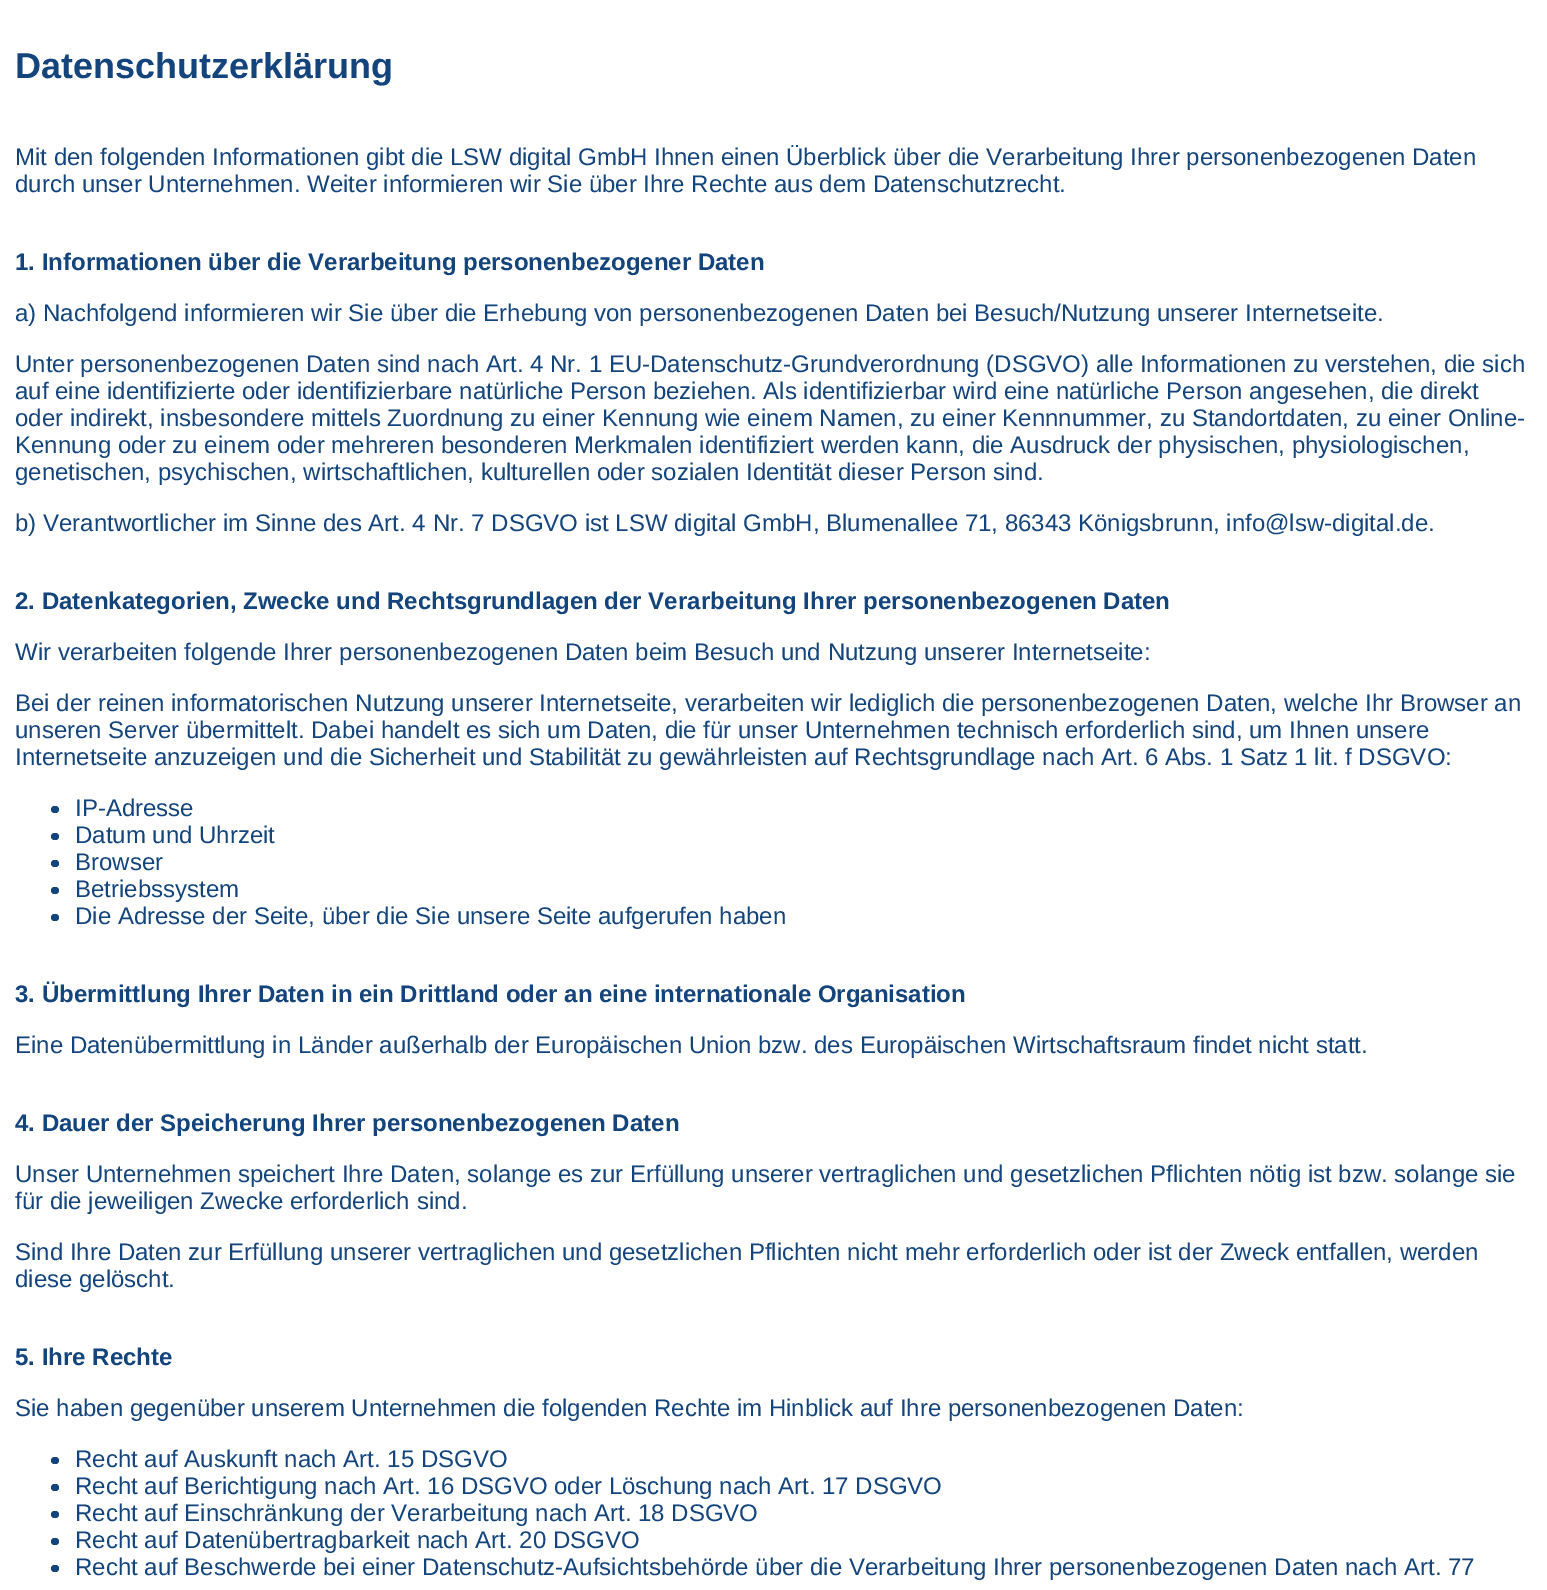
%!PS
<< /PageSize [1547 1590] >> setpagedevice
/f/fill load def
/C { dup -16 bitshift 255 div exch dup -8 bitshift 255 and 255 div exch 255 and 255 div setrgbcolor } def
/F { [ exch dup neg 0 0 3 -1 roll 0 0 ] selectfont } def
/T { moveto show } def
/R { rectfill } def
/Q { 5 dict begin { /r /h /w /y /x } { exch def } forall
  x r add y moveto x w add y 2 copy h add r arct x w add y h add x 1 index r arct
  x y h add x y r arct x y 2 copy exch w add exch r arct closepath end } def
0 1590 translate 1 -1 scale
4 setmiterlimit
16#FFFFFF C
0 0 1547 1590 R
/LiberationSans-Bold 36 F
16#13447C C
(Datenschutzerklärung) 15 78 T
/LiberationSans-Regular 24 F
(Mit den folgenden Informationen gibt die LSW digital GmbH Ihnen einen Überblick über die Verarbeitung Ihrer personenbezogenen Daten) 15 165 T
(durch unser Unternehmen. Weiter informieren wir Sie über Ihre Rechte aus dem Datenschutzrecht.) 15 192 T
/LiberationSans-Bold 24 F
(1. Informationen über die Verarbeitung personenbezogener Daten) 15 270 T
/LiberationSans-Regular 24 F
(a\) Nachfolgend informieren wir Sie über die Erhebung von personenbezogenen Daten bei Besuch/Nutzung unserer Internetseite.) 15 321 T
(Unter personenbezogenen Daten sind nach Art. 4 Nr. 1 EU-Datenschutz-Grundverordnung \(DSGVO\) alle Informationen zu verstehen, die sich) 15 372 T
(auf eine identifizierte oder identifizierbare natürliche Person beziehen. Als identifizierbar wird eine natürliche Person angesehen, die direkt) 15 399 T
(oder indirekt, insbesondere mittels Zuordnung zu einer Kennung wie einem Namen, zu einer Kennnummer, zu Standortdaten, zu einer Online-) 15 426 T
(Kennung oder zu einem oder mehreren besonderen Merkmalen identifiziert werden kann, die Ausdruck der physischen, physiologischen,) 15 453 T
(genetischen, psychischen, wirtschaftlichen, kulturellen oder sozialen Identität dieser Person sind.) 15 480 T
(b\) Verantwortlicher im Sinne des Art. 4 Nr. 7 DSGVO ist LSW digital GmbH, Blumenallee 71, 86343 Königsbrunn, info@lsw-digital.de.) 15 531 T
/LiberationSans-Bold 24 F
(2. Datenkategorien, Zwecke und Rechtsgrundlagen der Verarbeitung Ihrer personenbezogenen Daten) 15 609 T
/LiberationSans-Regular 24 F
(Wir verarbeiten folgende Ihrer personenbezogenen Daten beim Besuch und Nutzung unserer Internetseite:) 15 660 T
(Bei der reinen informatorischen Nutzung unserer Internetseite, verarbeiten wir lediglich die personenbezogenen Daten, welche Ihr Browser an) 15 711 T
(unseren Server übermittelt. Dabei handelt es sich um Daten, die für unser Unternehmen technisch erforderlich sind, um Ihnen unsere) 15 738 T
(Internetseite anzuzeigen und die Sicherheit und Stabilität zu gewährleisten auf Rechtsgrundlage nach Art. 6 Abs. 1 Satz 1 lit. f DSGVO:) 15 765 T
51 806 8 7 3.5 Q f
(IP-Adresse) 75 816 T
51 833 8 7 3.5 Q f
(Datum und Uhrzeit) 75 843 T
51 860 8 7 3.5 Q f
(Browser) 75 870 T
51 887 8 7 3.5 Q f
(Betriebssystem) 75 897 T
51 914 8 7 3.5 Q f
(Die Adresse der Seite, über die Sie unsere Seite aufgerufen haben) 75 924 T
/LiberationSans-Bold 24 F
(3. Übermittlung Ihrer Daten in ein Drittland oder an eine internationale Organisation) 15 1002 T
/LiberationSans-Regular 24 F
(Eine Datenübermittlung in Länder außerhalb der Europäischen Union bzw. des Europäischen Wirtschaftsraum findet nicht statt.) 15 1053 T
/LiberationSans-Bold 24 F
(4. Dauer der Speicherung Ihrer personenbezogenen Daten) 15 1131 T
/LiberationSans-Regular 24 F
(Unser Unternehmen speichert Ihre Daten, solange es zur Erfüllung unserer vertraglichen und gesetzlichen Pflichten nötig ist bzw. solange sie) 15 1182 T
(für die jeweiligen Zwecke erforderlich sind.) 15 1209 T
(Sind Ihre Daten zur Erfüllung unserer vertraglichen und gesetzlichen Pflichten nicht mehr erforderlich oder ist der Zweck entfallen, werden) 15 1260 T
(diese gelöscht.) 15 1287 T
/LiberationSans-Bold 24 F
(5. Ihre Rechte) 15 1365 T
/LiberationSans-Regular 24 F
(Sie haben gegenüber unserem Unternehmen die folgenden Rechte im Hinblick auf Ihre personenbezogenen Daten:) 15 1416 T
51 1457 8 7 3.5 Q f
(Recht auf Auskunft nach Art. 15 DSGVO) 75 1467 T
51 1484 8 7 3.5 Q f
(Recht auf Berichtigung nach Art. 16 DSGVO oder Löschung nach Art. 17 DSGVO) 75 1494 T
51 1511 8 7 3.5 Q f
(Recht auf Einschränkung der Verarbeitung nach Art. 18 DSGVO) 75 1521 T
51 1538 8 7 3.5 Q f
(Recht auf Datenübertragbarkeit nach Art. 20 DSGVO) 75 1548 T
51 1565 8 7 3.5 Q f
(Recht auf Beschwerde bei einer Datenschutz-Aufsichtsbehörde über die Verarbeitung Ihrer personenbezogenen Daten nach Art. 77) 75 1575 T
showpage
